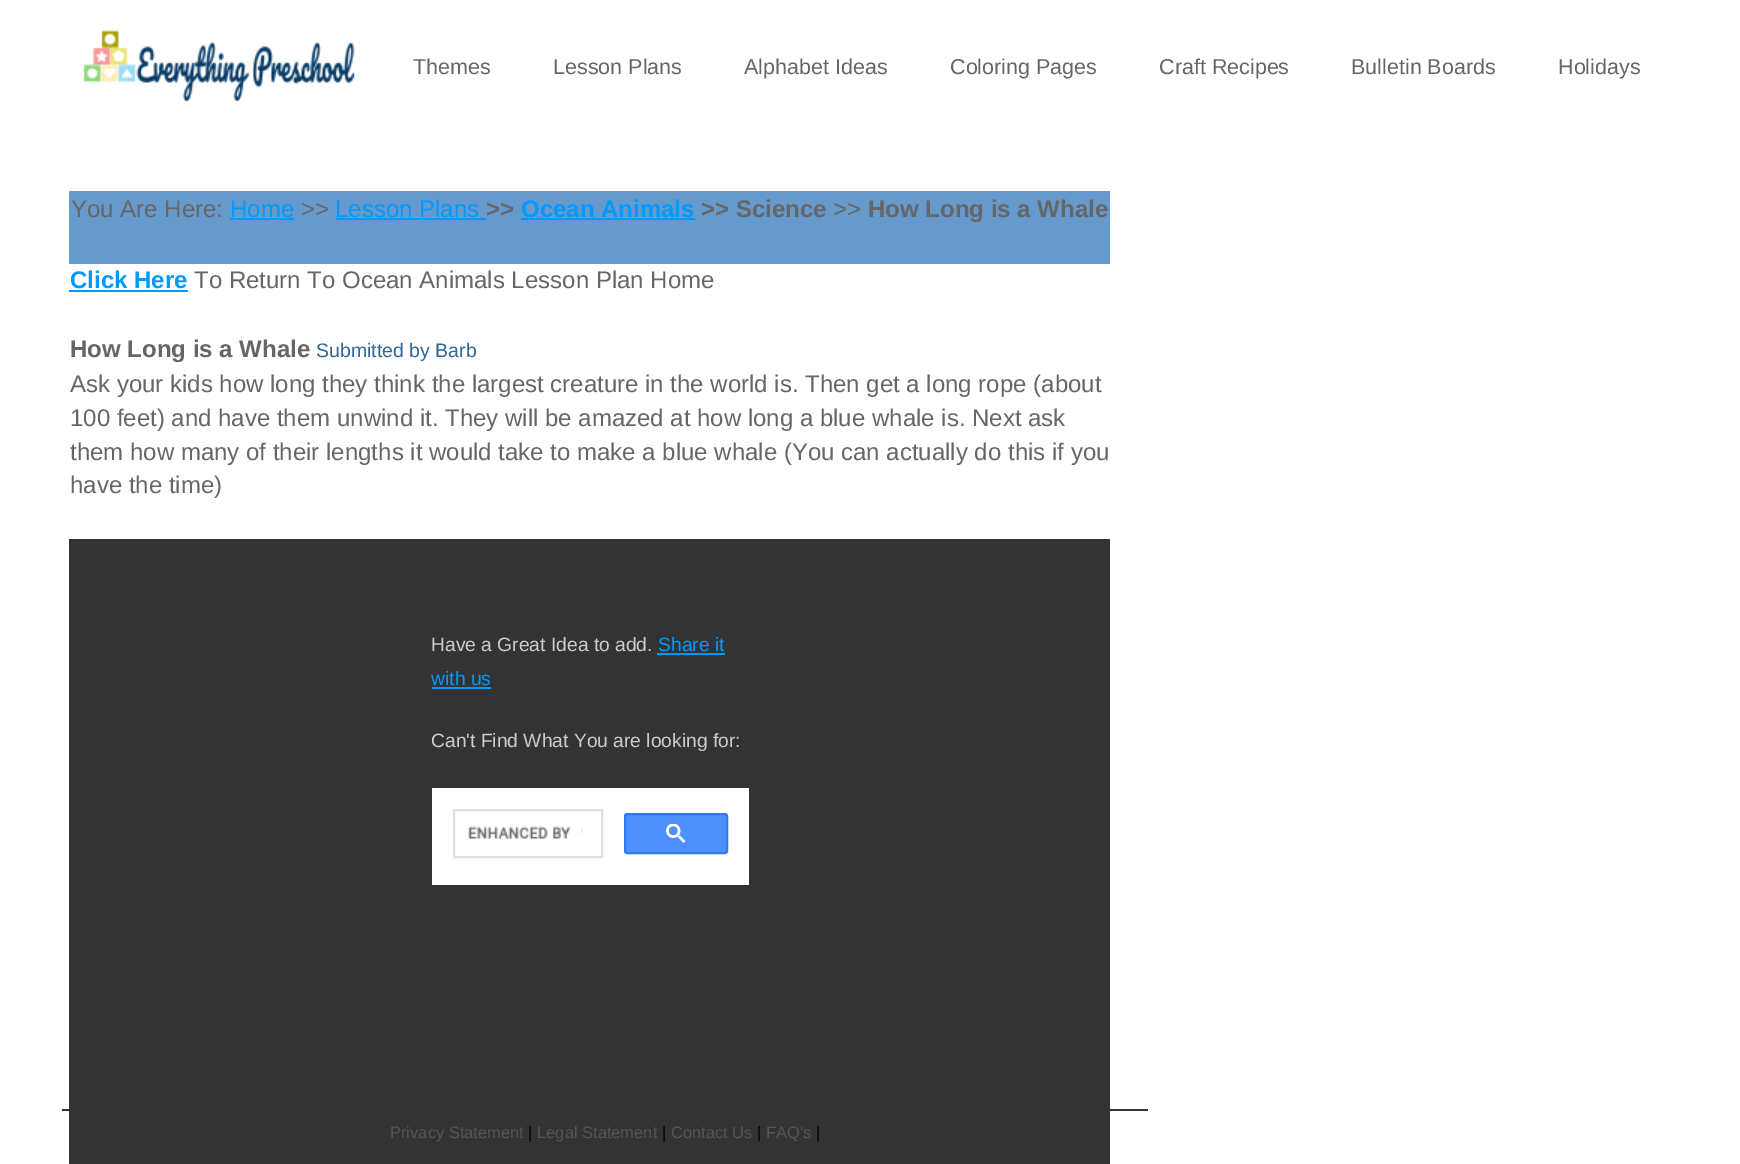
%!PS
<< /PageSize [1740 1164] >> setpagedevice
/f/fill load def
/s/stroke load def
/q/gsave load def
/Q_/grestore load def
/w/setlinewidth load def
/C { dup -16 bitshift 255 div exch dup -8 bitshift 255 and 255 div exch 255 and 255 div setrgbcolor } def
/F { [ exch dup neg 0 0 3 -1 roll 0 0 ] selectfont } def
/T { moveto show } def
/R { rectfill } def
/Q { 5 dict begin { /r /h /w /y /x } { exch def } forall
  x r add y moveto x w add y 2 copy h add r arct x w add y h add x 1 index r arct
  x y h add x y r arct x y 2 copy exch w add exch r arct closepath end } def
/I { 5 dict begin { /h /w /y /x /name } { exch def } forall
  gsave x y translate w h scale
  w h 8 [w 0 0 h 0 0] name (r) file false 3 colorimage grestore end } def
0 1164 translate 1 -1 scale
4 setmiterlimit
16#FFFFFF C
0 0 1740 1164 R
(1.rgb) 83 29 272 74 I
/LiberationSans-Regular 21.5 F
16#666666 C
(Themes) 413 74 T
(Lesson Plans) 553 74 T
(Alphabet Ideas) 744 74 T
(Coloring Pages) 950 74 T
(Craft Recipes) 1159 74 T
(Bulletin Boards) 1351 74 T
(Holidays) 1558 74 T
16#6699CC C
69 191 1041 73 R
/LiberationSans-Regular 24 F
16#666666 C
(You Are Here:) 71 217 T
16#0099FF C
(Home) 230 217 T
230 218 64 2 R
16#666666 C
(>>) 301 217 T
16#0099FF C
(Lesson Plans) 335 217 T
336 218 150 2 R
/LiberationSans-Bold 24 F
16#666666 C
(>>) 486 217 T
16#0099FF C
(Ocean Animals) 521 217 T
521 218 174 2 R
16#666666 C
(>> Science) 701 217 T
/LiberationSans-Regular 24 F
(>>) 833 217 T
/LiberationSans-Bold 24 F
(How Long is a Whale) 868 217 T
16#0099FF C
(Click Here) 70 288 T
69 290 119 2 R
/LiberationSans-Regular 24 F
16#666666 C
(To Return To Ocean Animals Lesson Plan Home) 194 288 T
/LiberationSans-Bold 24 F
(How Long is a Whale) 70 357 T
/LiberationSans-Regular 19.5 F
16#336699 C
(Submitted by Barb) 316 357 T
/LiberationSans-Regular 24 F
16#666666 C
(Ask your kids how long they think the largest creature in the world is. Then get a long rope \(about) 70 392 T
(100 feet\) and have them unwind it. They will be amazed at how long a blue whale is. Next ask) 70 426 T
(them how many of their lengths it would take to make a blue whale \(You can actually do this if you) 70 460 T
(have the time\)) 70 493 T
16#333333 C
69 539 1041 625 R
/LiberationSans-Regular 19.25 F
16#CCCCCC C
(Have a Great Idea to add.) 431 651 T
16#0099FF C
(Share it) 658 651 T
657 653 68 2 R
(with us) 431 685 T
432 687 59 2 R
16#CCCCCC C
(Can't Find What You are looking for:) 431 747 T
16#FFFFFF C
432 788 317 97 R
16#DFE1E5 C
2 w
454 810 148 47 rectstroke
(2.rgb) 468 826 114 13 I
16#4D90FE C
625 814 102 39 2 Q q f Q_
16#3079ED C
s
(3.rgb) 666 824 20 19 I
16#333333 C
62 1109 1086 2 R
/LiberationSans-Regular 16.5 F
16#555555 C
(Privacy Statement) 390 1138 T
16#000000 C
(|) 528 1138 T
16#555555 C
(Legal Statement) 537 1138 T
16#000000 C
(|) 662 1138 T
16#555555 C
(Contact Us) 671 1138 T
16#000000 C
(|) 757 1138 T
16#555555 C
(FAQ's) 766 1138 T
16#000000 C
(|) 816 1138 T
showpage
